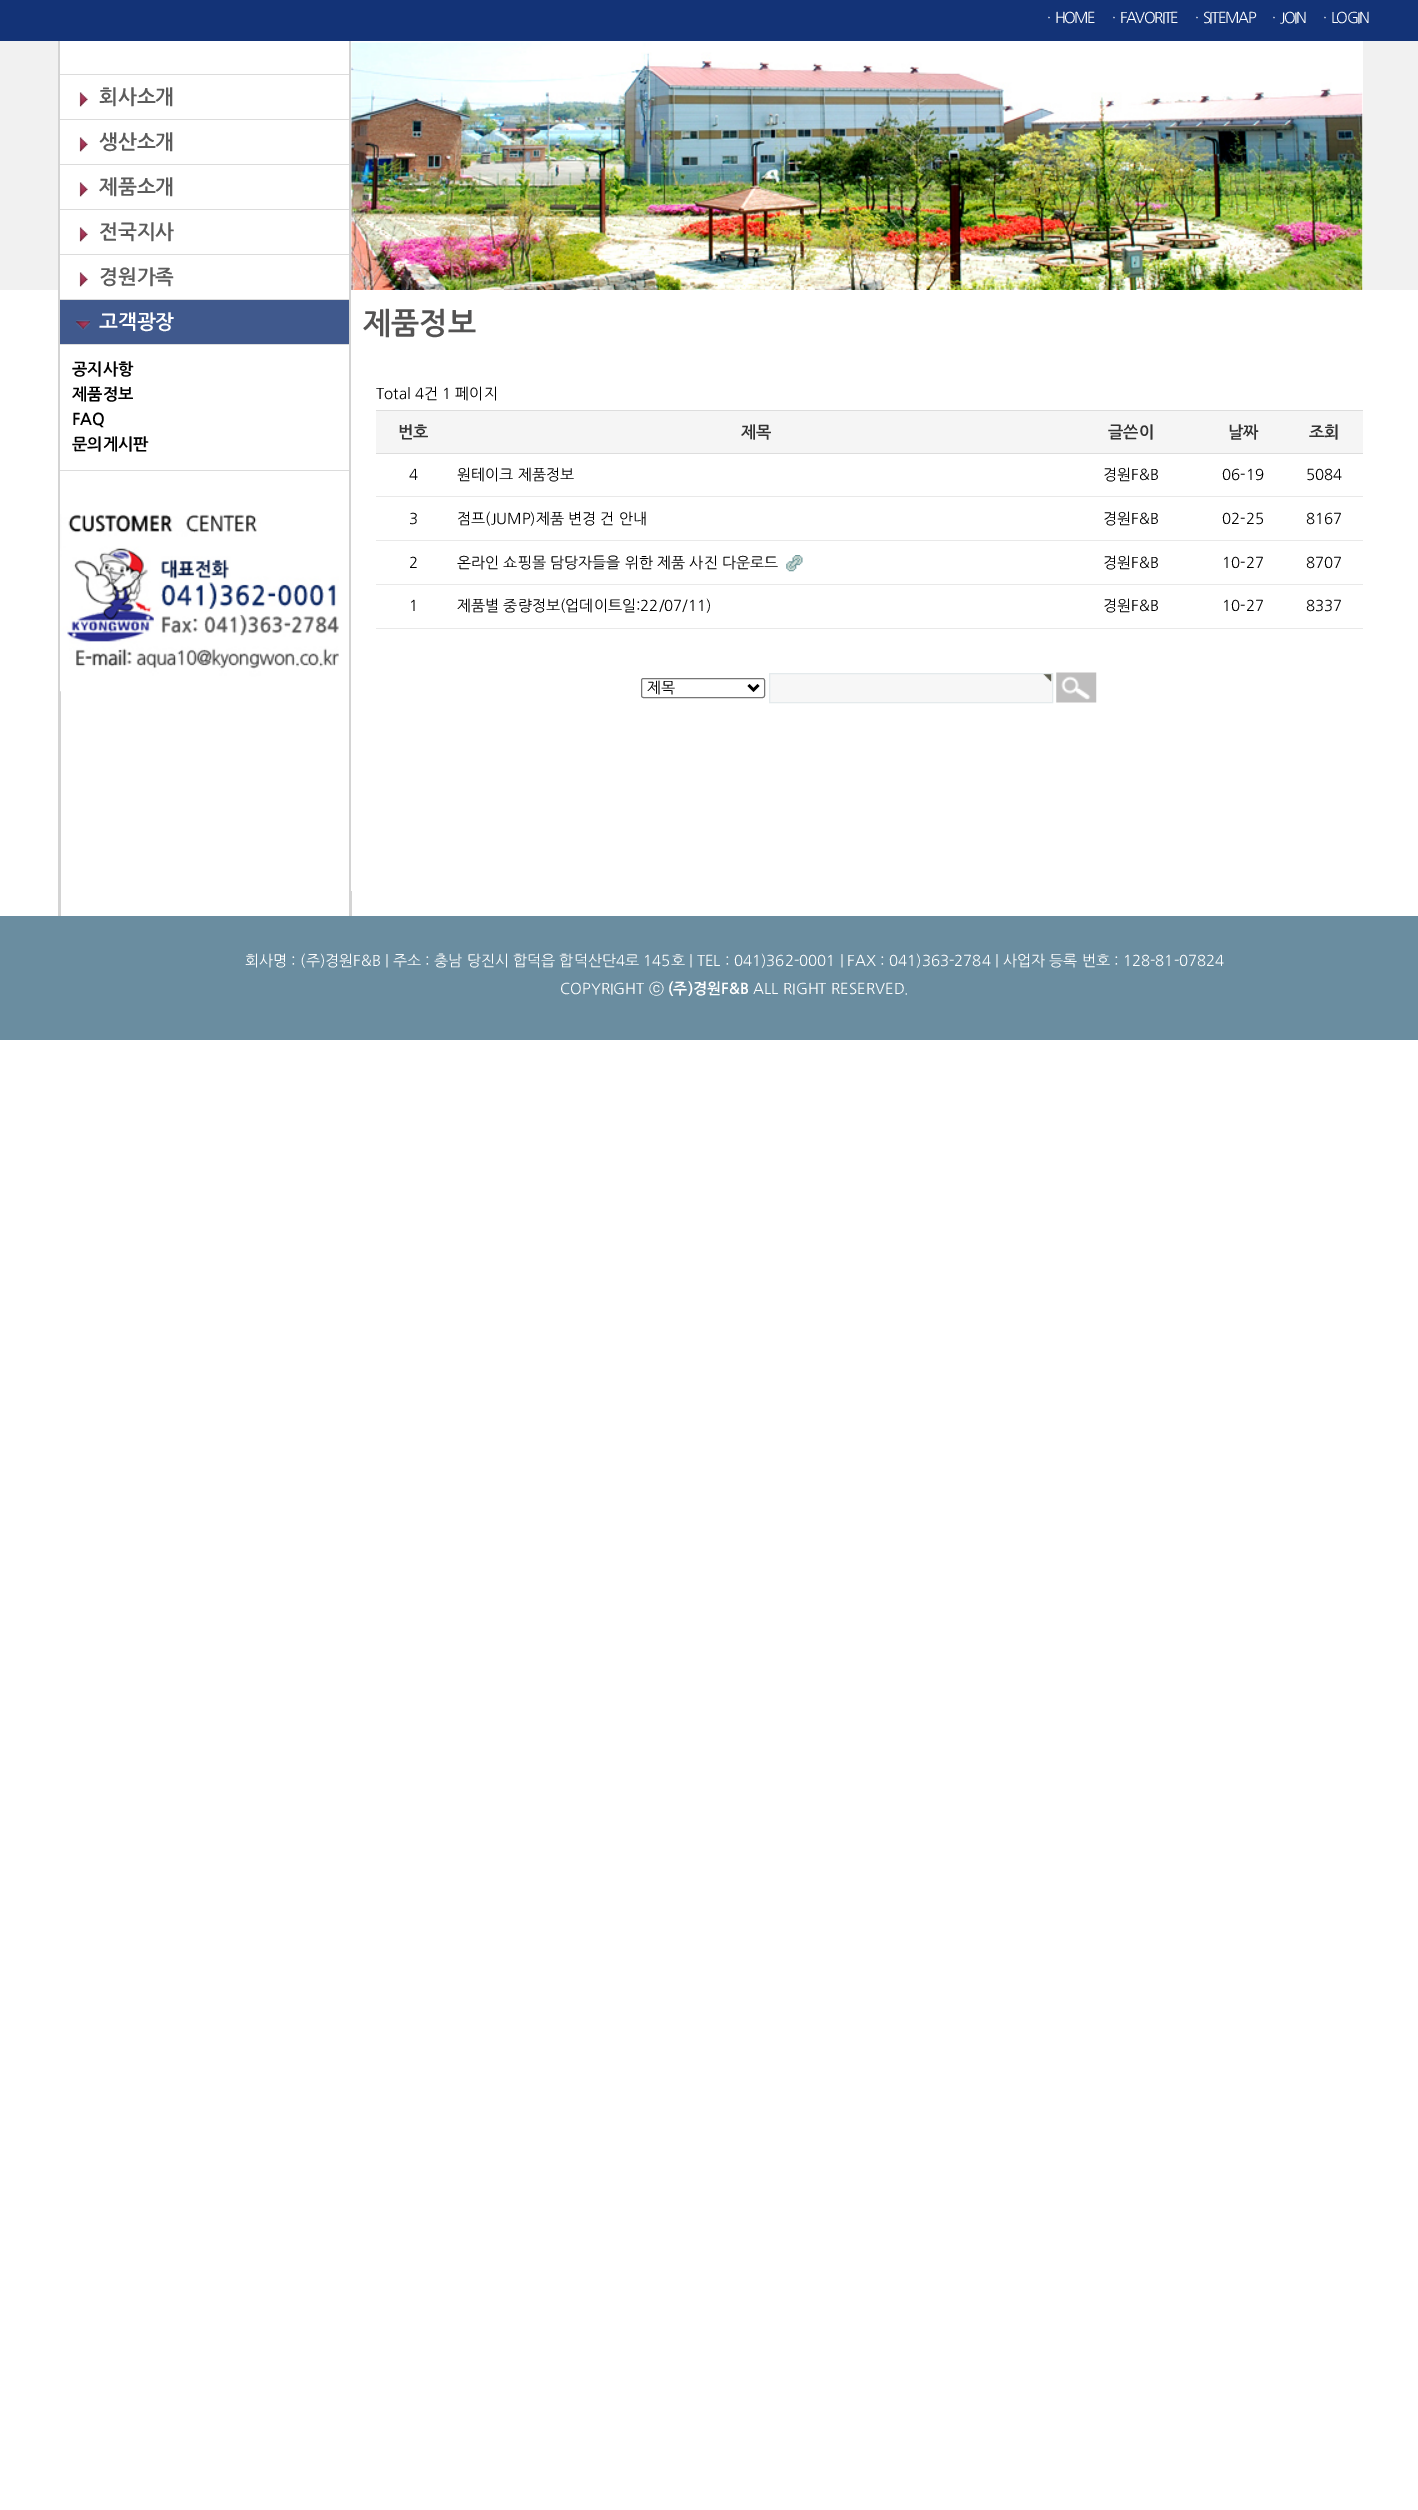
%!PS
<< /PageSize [1418 2510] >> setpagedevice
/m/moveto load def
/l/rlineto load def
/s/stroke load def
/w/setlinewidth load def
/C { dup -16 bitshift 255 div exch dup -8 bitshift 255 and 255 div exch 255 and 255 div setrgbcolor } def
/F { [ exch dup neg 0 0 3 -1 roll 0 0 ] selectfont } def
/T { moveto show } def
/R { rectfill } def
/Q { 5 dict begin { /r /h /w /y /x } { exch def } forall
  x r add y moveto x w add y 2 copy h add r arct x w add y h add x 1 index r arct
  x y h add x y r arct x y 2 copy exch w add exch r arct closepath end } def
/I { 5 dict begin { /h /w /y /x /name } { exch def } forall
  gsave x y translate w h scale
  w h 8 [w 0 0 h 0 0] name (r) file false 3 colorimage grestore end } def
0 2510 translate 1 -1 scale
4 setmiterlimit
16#FFFFFF C
0 0 1418 2510 R
16#F1F1F1 C
0 41 1418 249 R
16#133377 C
0 0 1418 41 R
/NanumGothic-Regular 15 F
16#FFFFFF C
1042 23 m -1.5 0 (ㆍHOME) ashow
1107 23 m -1.5 0 (ㆍFAVORITE) ashow
1190 23 m -1.5 0 (ㆍSITEMAP) ashow
1267 23 m -1.5 0 (ㆍJOIN) ashow
1318 23 m -1.5 0 (ㆍLOGIN) ashow
16#D4D4D4 C
58 41 3 875 R
16#FFFFFF C
60 41 289 650 R
16#DCDCDC C
60 74 289 1 R
60 119 289 1 R
(1.rgb) 79 92 9 15 I
/NanumGothic-Bold 20 F
16#5C5C5C C
(회사소개) 99 104 T
16#DCDCDC C
60 164 289 1 R
(1.rgb) 79 137 9 15 I
16#5C5C5C C
(생산소개) 99 149 T
16#DCDCDC C
60 209 289 1 R
(1.rgb) 79 182 9 15 I
16#5C5C5C C
(제품소개) 99 194 T
16#DCDCDC C
60 254 289 1 R
(1.rgb) 79 227 9 15 I
16#5C5C5C C
(전국지사) 99 239 T
16#DCDCDC C
60 299 289 1 R
(1.rgb) 79 272 9 15 I
16#5C5C5C C
(경원가족) 99 284 T
16#40598D C
60 300 289 44 R
16#DCDCDC C
60 344 289 1 R
(2.rgb) 76 320 14 10 I
16#FFFFFF C
(고객광장) 99 329 T
16#DCDCDC C
60 470 289 1 R
/NanumGothic-Bold 16.25 F
16#000000 C
(공지사항) 72 375 T
(제품정보) 72 400 T
(FAQ) 72 425 T
(문의게시판) 72 450 T
(3.rgb) 60 514 279 178 I
16#D4D4D4 C
349 41 3 875 R
16#FFFFFF C
351 41 1012 850 R
(4.rgb) 351 42 1012 248 I
/NanumGothic-Bold 30 F
16#545353 C
(제품정보) 363 334 T
/NanumGothic-Regular 15 F
16#000000 C
(Total 4건 1 페이지) 376 399 T
16#F5F5F5 C
376 411 987 42 R
/NanumGothic-Bold 16.25 F
16#333333 C
(번호) 398 438 T
(제목) 741 438 T
(글쓴이) 1108 438 T
(날짜) 1228 438 T
16#DDDDDD C
376 410 987 1 R
376 453 987 1 R
16#333333 C
(조회) 1309 438 T
/NanumGothic-Regular 15 F
16#000000 C
(4) 409 480 T
(원테이크 제품정보) 457 480 T
(경원F&B) 1103 480 T
(06-19) 1222 480 T
(5084) 1306 480 T
(3) 409 524 T
(점프\(JUMP\)제품 변경 건 안내) 457 524 T
(경원F&B) 1103 524 T
(02-25) 1222 524 T
16#E9E9E9 C
376 496 987 1 R
16#000000 C
(8167) 1306 524 T
(2) 409 568 T
(온라인 쇼핑몰 담당자들을 위한 제품 사진 다운로드) 457 568 T
(5.rgb) 786 555 17 17 I
(경원F&B) 1103 568 T
(10-27) 1222 568 T
16#E9E9E9 C
376 540 987 1 R
16#000000 C
(8707) 1306 568 T
(1) 409 611 T
(제품별 중량정보\(업데이트일:22/07/11\)) 457 611 T
(경원F&B) 1103 611 T
(10-27) 1222 611 T
16#E9E9E9 C
376 584 987 1 R
376 628 987 1 R
16#000000 C
(8337) 1306 611 T
16#767676 C
641.5 678.5 123 19 2 Q s
16#000000 C
2.5 w
748.5 685 m 5 5 l 5 -5 l s
(제목) 647 693 T
16#F7F7F7 C
770 674 282 28 R
(6.rgb) 1043 674 9 8 I
16#E4EAEC C
1 w
769.5 673.5 283 29 rectstroke
(7.rgb) 1056 672 41 31 I
16#6A8DA0 C
0 916 1418 124 R
16#FFFFFF C
(회사명 : \(주\)경원F&B | 주소 : 충남 당진시 합덕읍 합덕산단4로 145호 | TEL : 041\)362-0001 | FAX : 041\)363-2784 | 사업자 등록 번호 : 128-81-07824) 245 966 T
(COPYRIGHT) 560 994 T
/WenQuanYiZenHei-Medium 15 F
(ⓒ) 649 994 T
/NanumGothic-Bold 15 F
(\(주\)경원F&B) 668 994 T
/NanumGothic-Regular 15 F
(ALL RIGHT RESERVED.) 753 994 T
showpage
